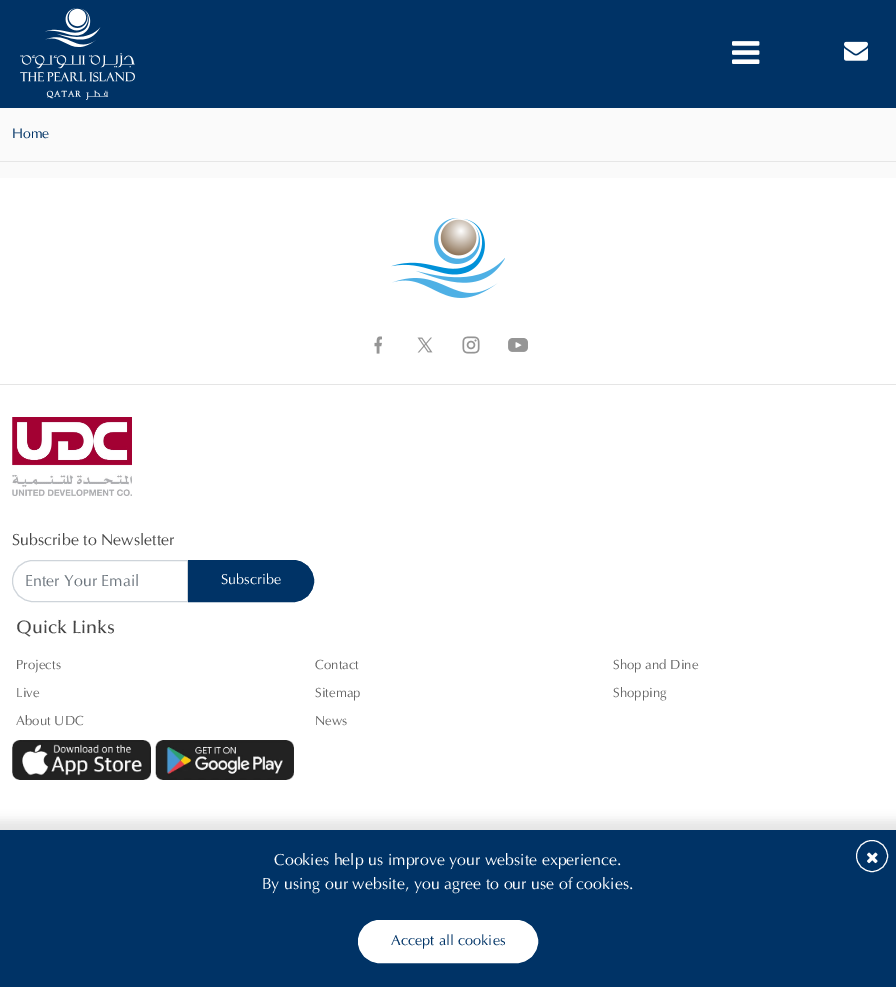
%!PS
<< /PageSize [896 987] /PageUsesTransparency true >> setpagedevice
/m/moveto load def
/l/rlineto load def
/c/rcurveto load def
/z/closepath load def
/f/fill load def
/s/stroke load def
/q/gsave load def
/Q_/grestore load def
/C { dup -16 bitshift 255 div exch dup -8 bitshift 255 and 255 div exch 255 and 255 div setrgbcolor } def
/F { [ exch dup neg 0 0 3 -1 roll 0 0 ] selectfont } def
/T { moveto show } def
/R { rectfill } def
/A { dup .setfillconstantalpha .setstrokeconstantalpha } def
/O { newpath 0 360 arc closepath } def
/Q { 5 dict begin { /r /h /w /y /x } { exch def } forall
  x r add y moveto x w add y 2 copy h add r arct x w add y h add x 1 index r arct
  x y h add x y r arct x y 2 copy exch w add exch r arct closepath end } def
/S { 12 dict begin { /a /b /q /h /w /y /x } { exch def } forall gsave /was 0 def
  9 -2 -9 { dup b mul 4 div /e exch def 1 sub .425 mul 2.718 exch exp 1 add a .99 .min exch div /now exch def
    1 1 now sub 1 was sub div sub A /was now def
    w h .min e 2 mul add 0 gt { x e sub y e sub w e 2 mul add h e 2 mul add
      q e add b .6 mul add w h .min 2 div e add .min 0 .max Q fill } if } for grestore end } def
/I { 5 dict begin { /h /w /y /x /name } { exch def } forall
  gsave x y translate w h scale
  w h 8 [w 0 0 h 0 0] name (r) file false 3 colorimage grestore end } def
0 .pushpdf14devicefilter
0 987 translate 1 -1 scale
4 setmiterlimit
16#FFFFFF C
0 0 896 987 R
16#003366 C
0 0 896 108 R
(1.rgb) 20 8 115 92 I
(2.rgb) 844 41 24 20 I
(3.rgb) 732 41 28 23 I
16#FAFAFA C
0 108 896 53 R
16#E6E6E6 C
0 161 896 1 R
/Optima-Regular 14 F
16#003366 C
(Home) 12 138 T
16#FAFAFA C
0 162 896 16 R
16#E5E5E5 C
0 384 896 1 R
(4.rgb) 391 218 114 80 I
(5.rgb) 374 336 8 18 I
(6.rgb) 417 337 16 16 I
(7.rgb) 462 336 18 18 I
(8.rgb) 508 338 20 14 I
(9.rgb) 12 417 120 79 I
/Optima-Regular 16 F
16#464646 C
(Subscribe to Newsletter) 12 545 T
16#CED4DA C
33 560.5 m 154.5 0 l 0 41 l -154.5 0 l -11.5 0 -20.5 -9 -20.5 -20.5 c 0 -11.5 9 -20.5 20.5 -20.5 c z s
16#6C757D C
(Enter Your Email) 25 586 T
16#003366 C
188.5 560.5 m 104.5 0 l 11.5 0 20.5 9 20.5 20.5 c 0 11.5 -9 20.5 -20.5 20.5 c -104.5 0 l z q f Q_
s
/Optima-Regular 14.5 F
16#FFFFFF C
(Subscribe) 221 584 T
/Optima-Medium 18 F
16#464646 C
(Quick Links) 16 633 T
/Optima-Regular 13.25 F
16#666666 C
(Projects) 16 669 T
(Live) 16 697 T
(About UDC) 16 725 T
(Contact) 315 669 T
(Sitemap) 315 697 T
(News) 315 725 T
(Shop and Dine) 613 669 T
(Shopping) 613 697 T
(10.rgb) 12 740 139 40 I
(11.rgb) 155 740 139 40 I
16#000000 C
-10 820 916 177 0 5 .1 S
16#003366 C
0 830 896 157 R
/Optima-Regular 16 F
16#FFFFFF C
(Cookies help us improve your website experience.) 274 865 T
(By using our website, you agree to our use of cookies.) 262 889 T
872 856 15.5 O s
(12.rgb) 867 852 11 12 I
358.5 920.5 179 42 21 Q q f Q_
s
/Optima-Regular 14.5 F
16#003366 C
(Accept all cookies) 391 945 T
.poppdf14devicefilter showpage
